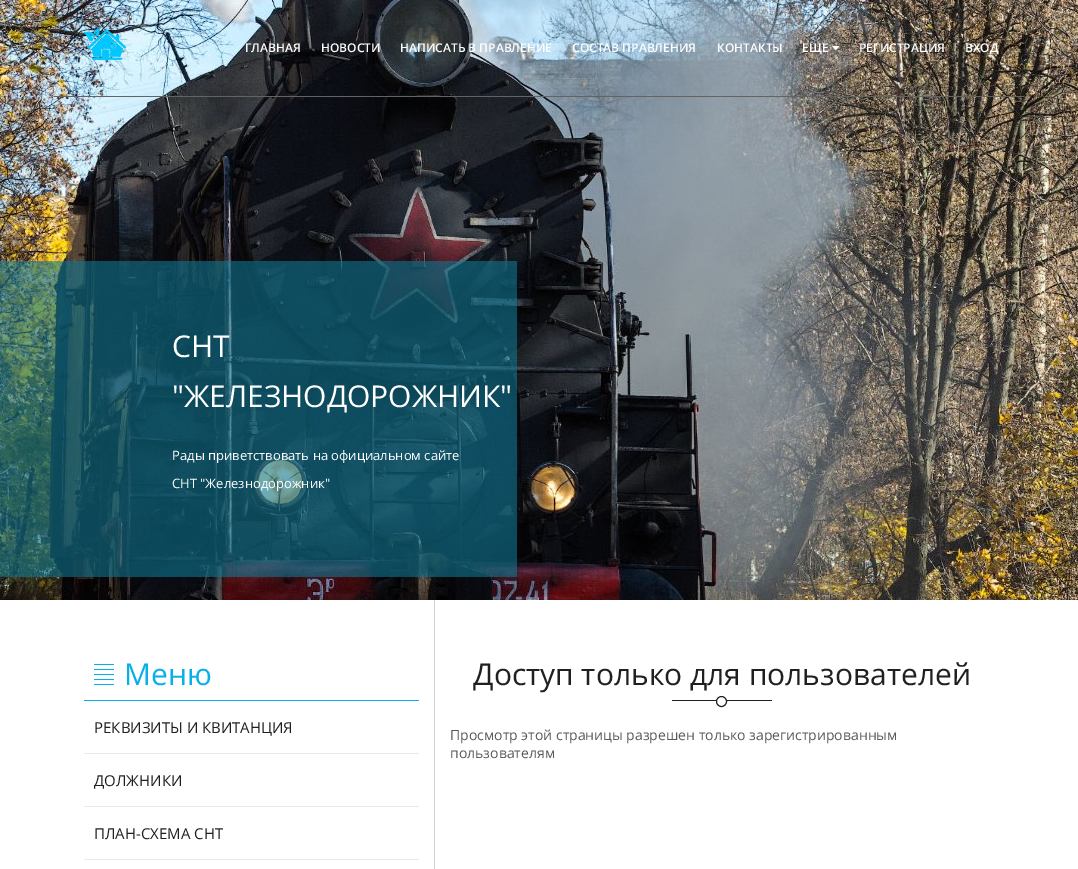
%!PS
<< /PageSize [1078 869] /PageUsesTransparency true >> setpagedevice
/f/fill load def
/s/stroke load def
/q/gsave load def
/Q_/grestore load def
/C { dup -16 bitshift 255 div exch dup -8 bitshift 255 and 255 div exch 255 and 255 div setrgbcolor } def
/F { [ exch dup neg 0 0 3 -1 roll 0 0 ] selectfont } def
/T { moveto show } def
/R { rectfill } def
/A { dup .setfillconstantalpha .setstrokeconstantalpha } def
/O { newpath 0 360 arc closepath } def
/I { 5 dict begin { /h /w /y /x /name } { exch def } forall
  gsave x y translate w h scale
  w h 8 [w 0 0 h 0 0] name (r) file false 3 colorimage grestore end } def
0 .pushpdf14devicefilter
0 869 translate 1 -1 scale
4 setmiterlimit
16#FFFFFF C
0 0 1078 869 R
(3.rgb) 0 0 1078 600 I
16#636364 C
54 96 970 1 R
(1.rgb) 84 28 42 32 I
/OpenSans-SemiBold 12 F
16#FFFFFF C
(ГЛАВНАЯ) 245 52 T
(НОВОСТИ) 321 52 T
(НАПИСАТЬ В ПРАВЛЕНИЕ) 400 52 T
(СОСТАВ ПРАВЛЕНИЯ) 572 52 T
(КОНТАКТЫ) 717 52 T
(ЕЩЕ) 802 52 T
(2.rgb) 832 46 8 4 I
(РЕГИСТРАЦИЯ) 859 52 T
(ВХОД) 965 52 T
0.6 A
16#0F748F C
0 261 517 316 R
/OpenSans-Regular 30 F
1 A
16#FFFFFF C
(СНТ) 172 357 T
("ЖЕЛЕЗНОДОРОЖНИК") 172 407 T
/OpenSans-Regular 13 F
(Рады приветствовать на официальном сайте) 172 460 T
(СНТ "Железнодорожник") 172 488 T
16#09AFE8 C
84 700 335 1 R
(4.rgb) 94 664 20 21 I
/OpenSans-Regular 30 F
(Меню) 124 685 T
16#E9E9E9 C
84 753 335 1 R
/OpenSans-Regular 15 F
16#1F2021 C
(РЕКВИЗИТЫ И КВИТАНЦИЯ) 94 733 T
16#E9E9E9 C
84 806 335 1 R
16#1F2021 C
(ДОЛЖНИКИ) 94 786 T
16#E9E9E9 C
84 859 335 1 R
16#1F2021 C
(ПЛАН-СХЕМА СНТ) 94 839 T
16#D3D3D3 C
434 600 1 269 R
/OpenSans-Regular 30 F
16#1F2021 C
(Доступ только для пользователей) 473 685 T
672 700 100 1 R
16#FFFFFF C
721.5 701.5 5 O q f Q_
16#1F2021 C
s
/OpenSans-Regular 14 F
16#575859 C
(Просмотр этой страницы разрешен только зарегистрированным) 450 740 T
(пользователям) 450 758 T
.poppdf14devicefilter showpage
